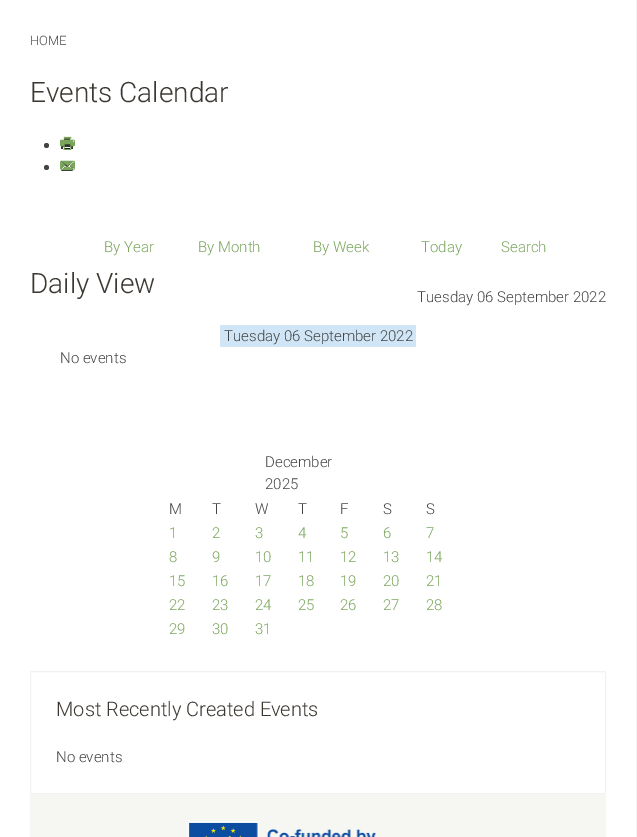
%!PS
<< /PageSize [637 837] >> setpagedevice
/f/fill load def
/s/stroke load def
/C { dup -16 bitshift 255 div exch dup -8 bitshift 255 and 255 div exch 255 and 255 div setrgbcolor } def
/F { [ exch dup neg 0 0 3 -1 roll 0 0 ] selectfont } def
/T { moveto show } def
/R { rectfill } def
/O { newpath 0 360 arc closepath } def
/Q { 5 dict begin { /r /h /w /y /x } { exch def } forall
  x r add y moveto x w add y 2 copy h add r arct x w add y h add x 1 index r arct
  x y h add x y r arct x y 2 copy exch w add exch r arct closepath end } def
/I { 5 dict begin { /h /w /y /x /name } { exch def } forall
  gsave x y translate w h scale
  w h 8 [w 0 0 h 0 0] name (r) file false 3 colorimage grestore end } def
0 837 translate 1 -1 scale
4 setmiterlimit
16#FFFFFF C
0 0 637 837 R
16#F2F2F2 C
636 0 1 837 R
/Roboto-Light 13 F
16#444444 C
(HOME) 30 45 T
/Roboto-Light 28 F
16#3C3831 C
(Events Calendar) 30 102 T
16#444444 C
46.5 145.5 2.5 O f
(1.rgb) 61 138 12 12 I
(2.rgb) 60 136 15 14 I
46.5 167.5 2.5 O f
(3.rgb) 61 161 12 10 I
(4.rgb) 60 160 15 11 I
/Roboto-Light 15 F
16#79A65A C
(By Year) 104 252 T
(By Month) 198 252 T
(By Week) 313 252 T
(Today) 421 252 T
(Search) 501 252 T
/Roboto-Light 28 F
16#3C3831 C
(Daily View) 30 293 T
/Roboto-Light 15 F
16#444444 C
(Tuesday 06 September 2022) 417 302 T
16#D0E6F6 C
220 325 196 22 R
16#444444 C
(Tuesday 06 September 2022) 224 341 T
(No events) 60 363 T
(December) 265 467 T
(2025) 265 489 T
(M) 169 514 T
(T) 212 514 T
(W) 255 514 T
(T) 298 514 T
(F) 340 514 T
(S) 383 514 T
(S) 426 514 T
16#79A65A C
(1) 169 538 T
(2) 212 538 T
(3) 255 538 T
(4) 298 538 T
(5) 340 538 T
(6) 383 538 T
(7) 426 538 T
(8) 169 562 T
(9) 212 562 T
(10) 255 562 T
(11) 298 562 T
(12) 340 562 T
(13) 383 562 T
(14) 426 562 T
(15) 169 586 T
(16) 212 586 T
(17) 255 586 T
(18) 298 586 T
(19) 340 586 T
(20) 383 586 T
(21) 426 586 T
(22) 169 610 T
(23) 212 610 T
(24) 255 610 T
(25) 298 610 T
(26) 340 610 T
(27) 383 610 T
(28) 426 610 T
(29) 169 634 T
(30) 212 634 T
(31) 255 634 T
16#F2F2F2 C
30.5 671.5 575 122 1.5 Q s
/Roboto-Light 20 F
16#3C3831 C
(Most Recently Created Events) 56 716 T
/Roboto-Light 15 F
16#444444 C
(No events) 56 762 T
16#F6F6F3 C
30 794 576 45 2 Q f
(5.rgb) 187 821 189 16 I
showpage
